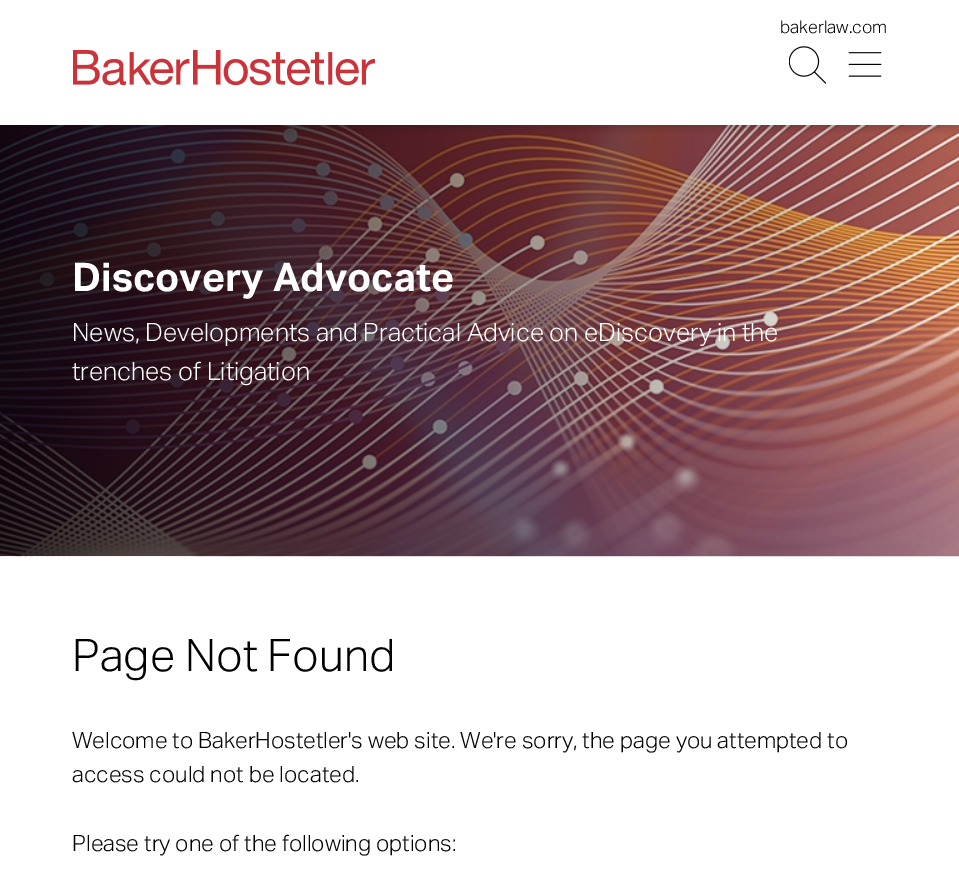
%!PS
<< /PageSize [959 895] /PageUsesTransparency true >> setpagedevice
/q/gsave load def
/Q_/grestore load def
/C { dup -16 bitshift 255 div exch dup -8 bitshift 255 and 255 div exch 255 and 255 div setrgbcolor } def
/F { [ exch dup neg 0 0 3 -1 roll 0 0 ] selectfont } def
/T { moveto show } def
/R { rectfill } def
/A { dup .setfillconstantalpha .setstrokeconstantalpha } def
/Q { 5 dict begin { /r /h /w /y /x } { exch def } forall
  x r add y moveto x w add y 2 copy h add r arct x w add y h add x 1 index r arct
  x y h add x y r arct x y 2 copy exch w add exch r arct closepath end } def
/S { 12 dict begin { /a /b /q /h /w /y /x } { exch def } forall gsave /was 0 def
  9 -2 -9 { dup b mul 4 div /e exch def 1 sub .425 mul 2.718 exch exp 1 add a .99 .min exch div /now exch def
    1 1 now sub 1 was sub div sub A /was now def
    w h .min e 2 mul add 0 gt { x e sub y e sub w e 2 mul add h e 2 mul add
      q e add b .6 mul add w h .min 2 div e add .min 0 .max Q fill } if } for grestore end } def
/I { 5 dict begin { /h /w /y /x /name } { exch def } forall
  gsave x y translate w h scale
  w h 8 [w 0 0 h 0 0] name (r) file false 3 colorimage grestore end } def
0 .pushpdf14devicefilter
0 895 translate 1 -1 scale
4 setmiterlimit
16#FFFFFF C
0 0 959 895 R
(4.rgb) 0 125 959 432 I
q
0 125 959 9 rectclip
16#000000 C
0 4 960 125 0 4 .16 S
Q_
/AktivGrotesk-Light 17.5 F
16#000000 C
(bakerlaw.com) 780 33 T
(1.rgb) 789 46 37 38 I
(2.rgb) 848 52 34 25 I
(3.rgb) 73 50 302 36 I
/AktivGrotesk-Bold 39.4 F
16#FFFFFF C
(Discovery Advocate) 72 291 T
/AktivGrotesk-Light 25.3 F
(News, Developments and Practical Advice on eDiscovery in the) 72 341 T
(trenches of Litigation) 72 380 T
/AktivGrotesk-Light 45 F
16#000000 C
(Page Not Found) 72 671 T
/AktivGrotesk-Light 22.5 F
(Welcome to BakerHostetler's web site. We're sorry, the page you attempted to) 72 748 T
(access could not be located.) 72 782 T
(Please try one of the following options:) 72 851 T
.poppdf14devicefilter showpage
